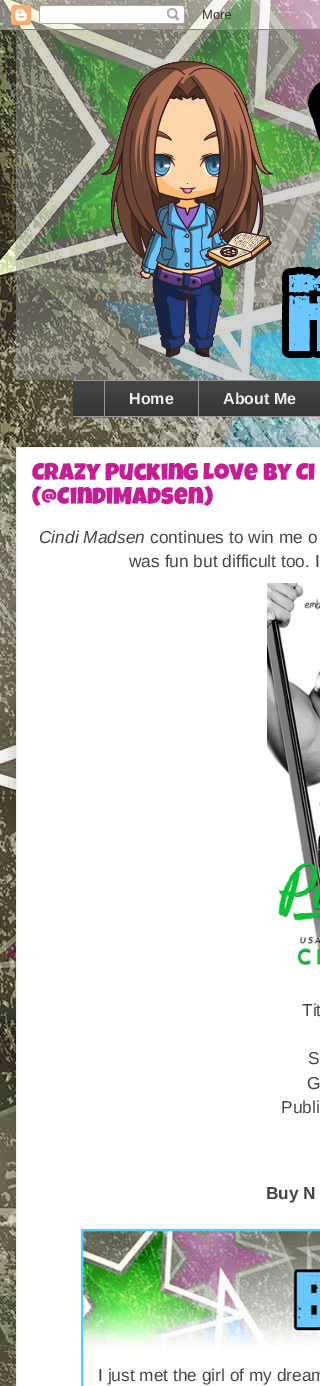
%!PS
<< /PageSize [320 1386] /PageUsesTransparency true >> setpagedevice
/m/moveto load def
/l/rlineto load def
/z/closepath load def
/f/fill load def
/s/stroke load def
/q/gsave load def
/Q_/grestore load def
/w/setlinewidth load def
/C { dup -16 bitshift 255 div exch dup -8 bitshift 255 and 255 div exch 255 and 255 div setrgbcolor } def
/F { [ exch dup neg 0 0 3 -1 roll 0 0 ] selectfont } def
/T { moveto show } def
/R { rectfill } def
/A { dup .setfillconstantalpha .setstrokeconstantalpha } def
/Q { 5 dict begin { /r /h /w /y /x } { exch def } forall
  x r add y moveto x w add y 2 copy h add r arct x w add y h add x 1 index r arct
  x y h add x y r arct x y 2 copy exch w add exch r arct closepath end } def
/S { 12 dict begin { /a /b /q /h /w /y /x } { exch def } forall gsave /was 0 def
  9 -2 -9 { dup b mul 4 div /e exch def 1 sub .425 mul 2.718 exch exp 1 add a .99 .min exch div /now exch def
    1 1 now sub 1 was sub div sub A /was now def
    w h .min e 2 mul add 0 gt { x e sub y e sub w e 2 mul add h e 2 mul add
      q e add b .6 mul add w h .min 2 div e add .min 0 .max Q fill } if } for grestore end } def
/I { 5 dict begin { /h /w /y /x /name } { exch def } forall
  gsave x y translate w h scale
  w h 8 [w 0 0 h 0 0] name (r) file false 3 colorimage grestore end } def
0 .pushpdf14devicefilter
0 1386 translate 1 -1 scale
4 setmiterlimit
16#FFFFFF C
0 0 320 1386 R
(1.rgb) 0 0 320 1386 I
(2.rgb) 0 0 320 30 I
(3.rgb) 16 30 304 350 I
16#444444 C
73 381 247 35 R
(4.rgb) 73 392 247 24 I
16#999999 C
73 380 247 1 R
104 380 1 37 R
/LiberationSans-Bold 16 F
16#EEEEEE C
(Home) 129 404 T
16#999999 C
198 380 1 37 R
16#EEEEEE C
(About Me) 223 404 T
16#999999 C
73 416 247 1 R
16#000000 C
16 447 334 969 0 10 .2 S
16#FFFFFF C
16.5 447.5 m 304 0 l 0 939 l -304 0 l z q f Q_
16#EEEEEE C
s
/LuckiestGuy-Regular 24 F
16#C81C94 C
(Crazy Pucking Love by Ci) 32 480 T
(\(@CindiMadsen\)) 32 504 T
/LiberationSans-Italic 17.3 F
16#444444 C
(Cindi Madsen) 39 543 T
/LiberationSans-Regular 17.3 F
(continues to win me o) 150 543 T
(was fun but difficult too. I) 129 567 T
(5.rgb) 267 583 53 383 I
(Tit) 302 1016 T
(S) 308 1064 T
(G) 307 1089 T
(Publi) 281 1113 T
/LiberationSans-Bold 17.3 F
(Buy N) 266 1199 T
(6.rgb) 83 1231 237 123 I
16#4ED0FF C
2 w
82 1230 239 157 rectstroke
/LiberationSans-Regular 17.3 F
16#444444 C
(I just met the girl of my dream) 98 1381 T
.poppdf14devicefilter showpage
